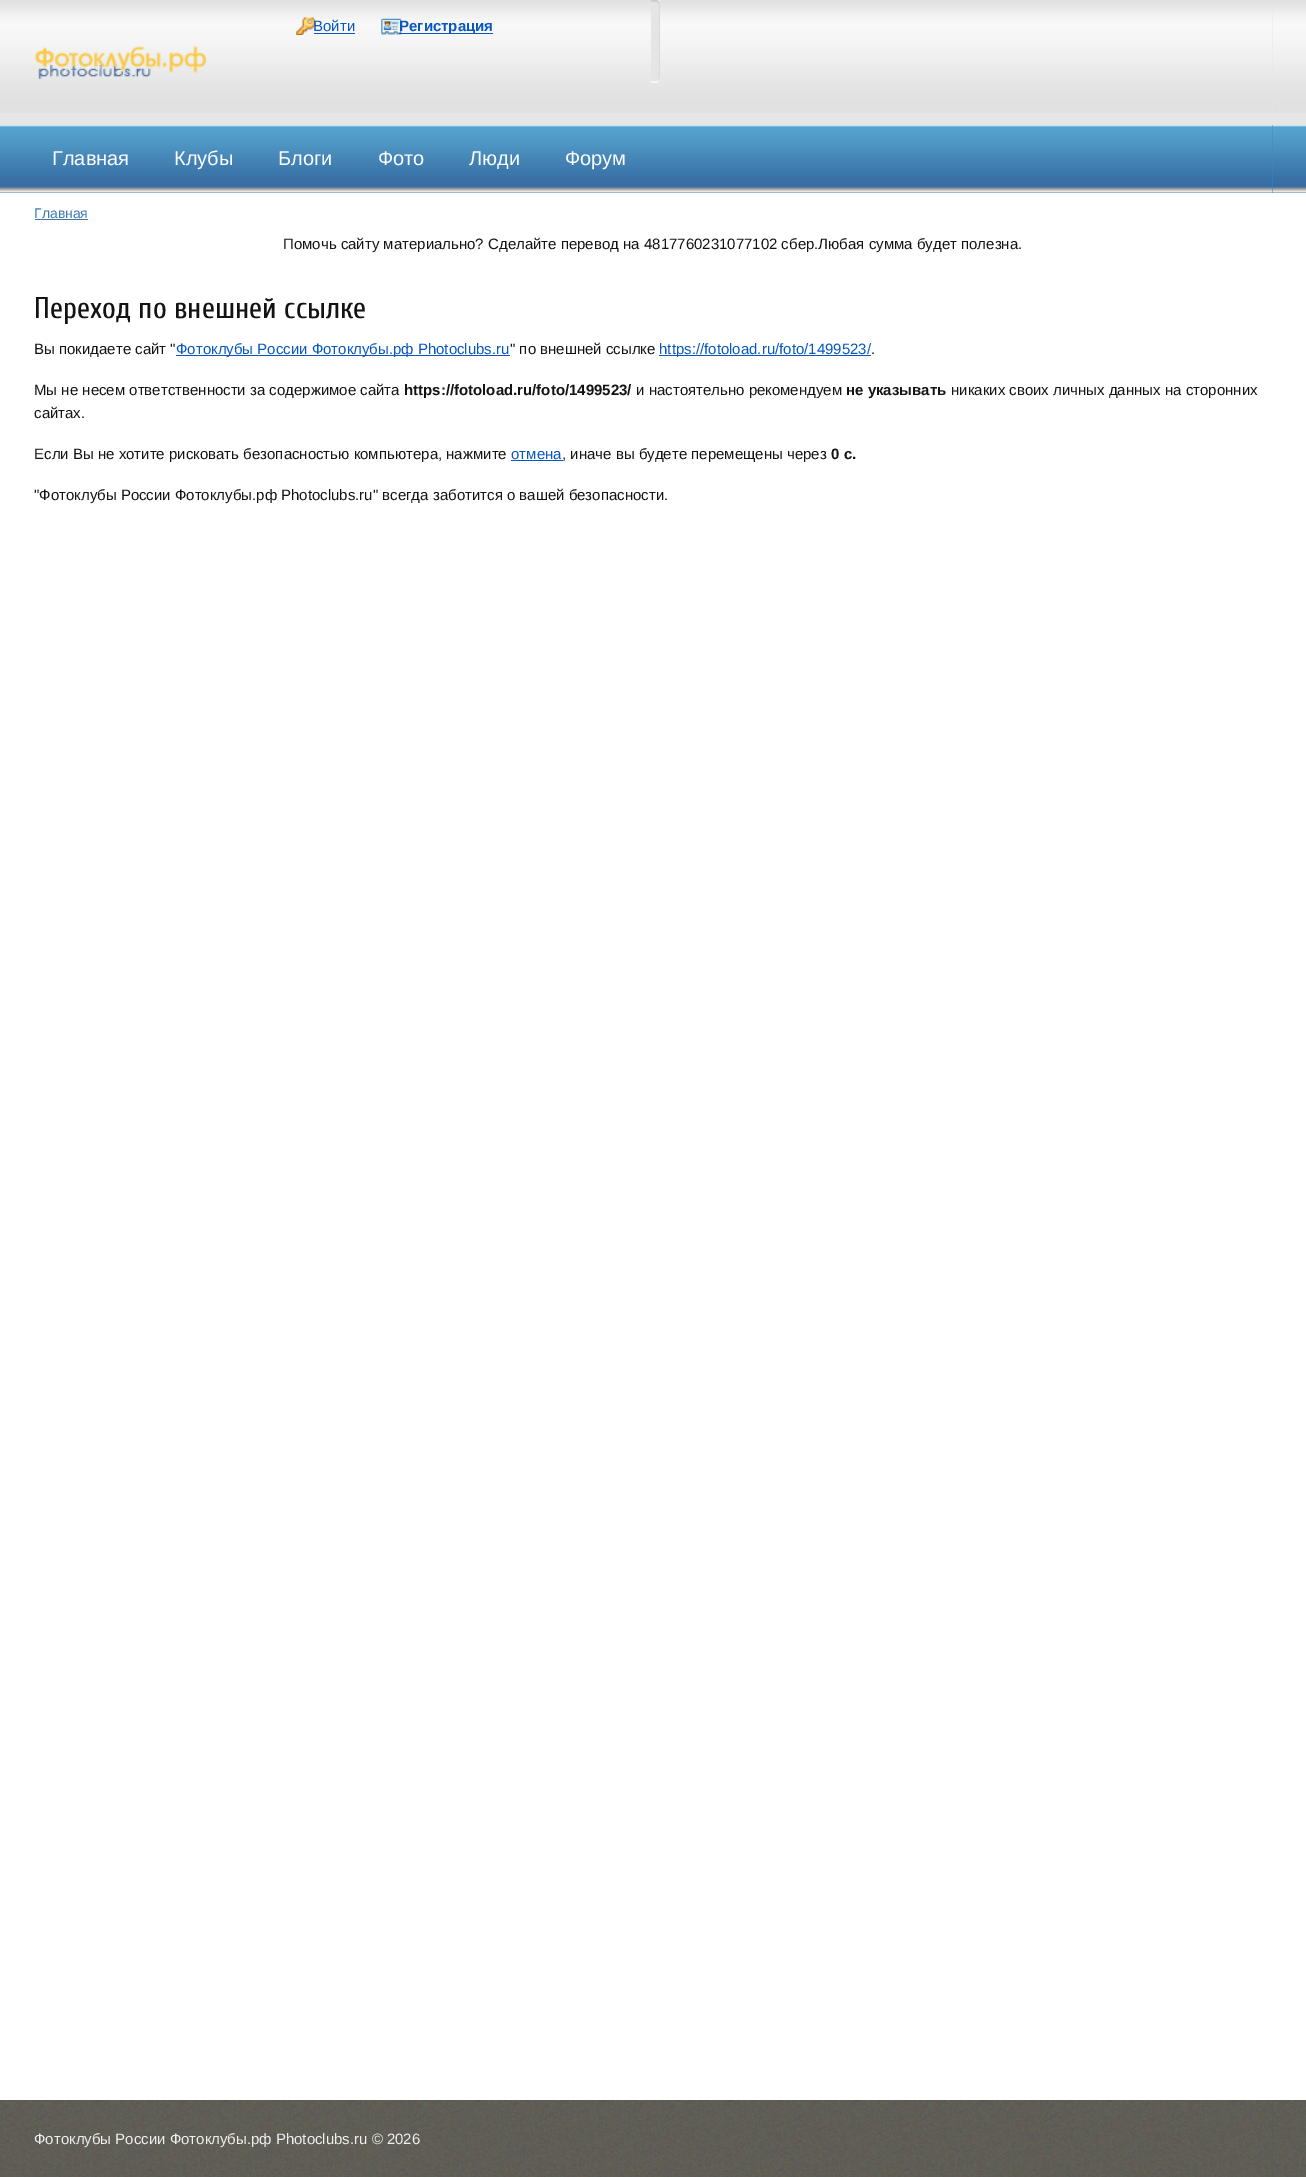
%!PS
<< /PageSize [1306 2177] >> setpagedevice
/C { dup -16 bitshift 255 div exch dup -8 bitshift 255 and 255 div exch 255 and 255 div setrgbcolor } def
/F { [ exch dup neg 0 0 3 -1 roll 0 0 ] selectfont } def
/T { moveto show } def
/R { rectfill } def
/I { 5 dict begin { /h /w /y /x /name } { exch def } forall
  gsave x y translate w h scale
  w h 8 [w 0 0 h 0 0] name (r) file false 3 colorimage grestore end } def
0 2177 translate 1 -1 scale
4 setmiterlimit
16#FFFFFF C
0 0 1306 2177 R
16#E6E6E6 C
0 113 1306 12 R
(1.rgb) 0 0 1306 113 I
35 0 1238 113 R
(2.rgb) 35 0 1238 113 I
(3.rgb) 651 0 9 83 I
(4.rgb) 651 0 7 83 I
(5.rgb) 296 17 20 18 I
/LiberationSans-Regular 15 F
16#0857C1 C
(Войти) 313 31 T
314 33 41 1 R
(6.rgb) 381 18 21 17 I
399 33 94 1 R
/LiberationSans-Bold 15 F
(Регистрация) 399 31 T
(7.rgb) 35 46 171 33 I
16#4587B7 C
0 192 1306 1 R
(8.rgb) 0 125 1306 68 I
35 125 1238 68 R
(9.rgb) 35 125 1238 68 I
/LiberationSans-Regular 20 F
16#FEFEFE C
(Главная) 52 165 T
(Клубы) 174 165 T
(Блоги) 278 165 T
(Фото) 378 165 T
(Люди) 469 165 T
(Форум) 565 165 T
/LiberationSans-Regular 14 F
16#3D78AC C
(Главная) 34 218 T
35 219 53 1 R
/LiberationSans-Regular 15 F
16#131313 C
(Помочь сайту материально? Сделайте перевод на 4817760231077102 сбер.Любая сумма будет полезна.) 283 249 T
/Cuprum-Regular 30 F
(Переход по внешней ссылке) 34 318 T
/LiberationSans-Regular 15 F
(Вы покидаете сайт ") 34 354 T
16#0857C1 C
176 355 334 1 R
(Фотоклубы России Фотоклубы.рф Photoclubs.ru) 176 354 T
16#131313 C
(" по внешней ссылке) 510 354 T
16#0857C1 C
659 355 212 1 R
(https://fotoload.ru/foto/1499523/) 659 354 T
16#131313 C
(.) 871 354 T
(Мы не несем ответственности за содержимое сайта) 34 395 T
/LiberationSans-Bold 15 F
(https://fotoload.ru/foto/1499523/) 404 395 T
/LiberationSans-Regular 15 F
(и настоятельно рекомендуем) 636 395 T
/LiberationSans-Bold 15 F
(не указывать) 846 395 T
/LiberationSans-Regular 15 F
(никаких своих личных данных на сторонних) 951 395 T
(сайтах.) 34 418 T
(Если Вы не хотите рисковать безопасностью компьютера, нажмите) 34 459 T
16#0857C1 C
(отмена) 511 459 T
511 460 52 1 R
16#131313 C
(, иначе вы будете перемещены через) 562 459 T
/LiberationSans-Bold 15 F
(0 с.) 831 459 T
/LiberationSans-Regular 15 F
("Фотоклубы России Фотоклубы.рф Photoclubs.ru" всегда заботится о вашей безопасности.) 34 500 T
(10.rgb) 0 2100 1306 77 I
16#5A5656 C
1272 2100 1 77 R
(11.rgb) 35 2100 1238 77 I
16#EFEFEF C
(Фотоклубы России Фотоклубы.рф Photoclubs.ru © 2026) 34 2144 T
showpage
